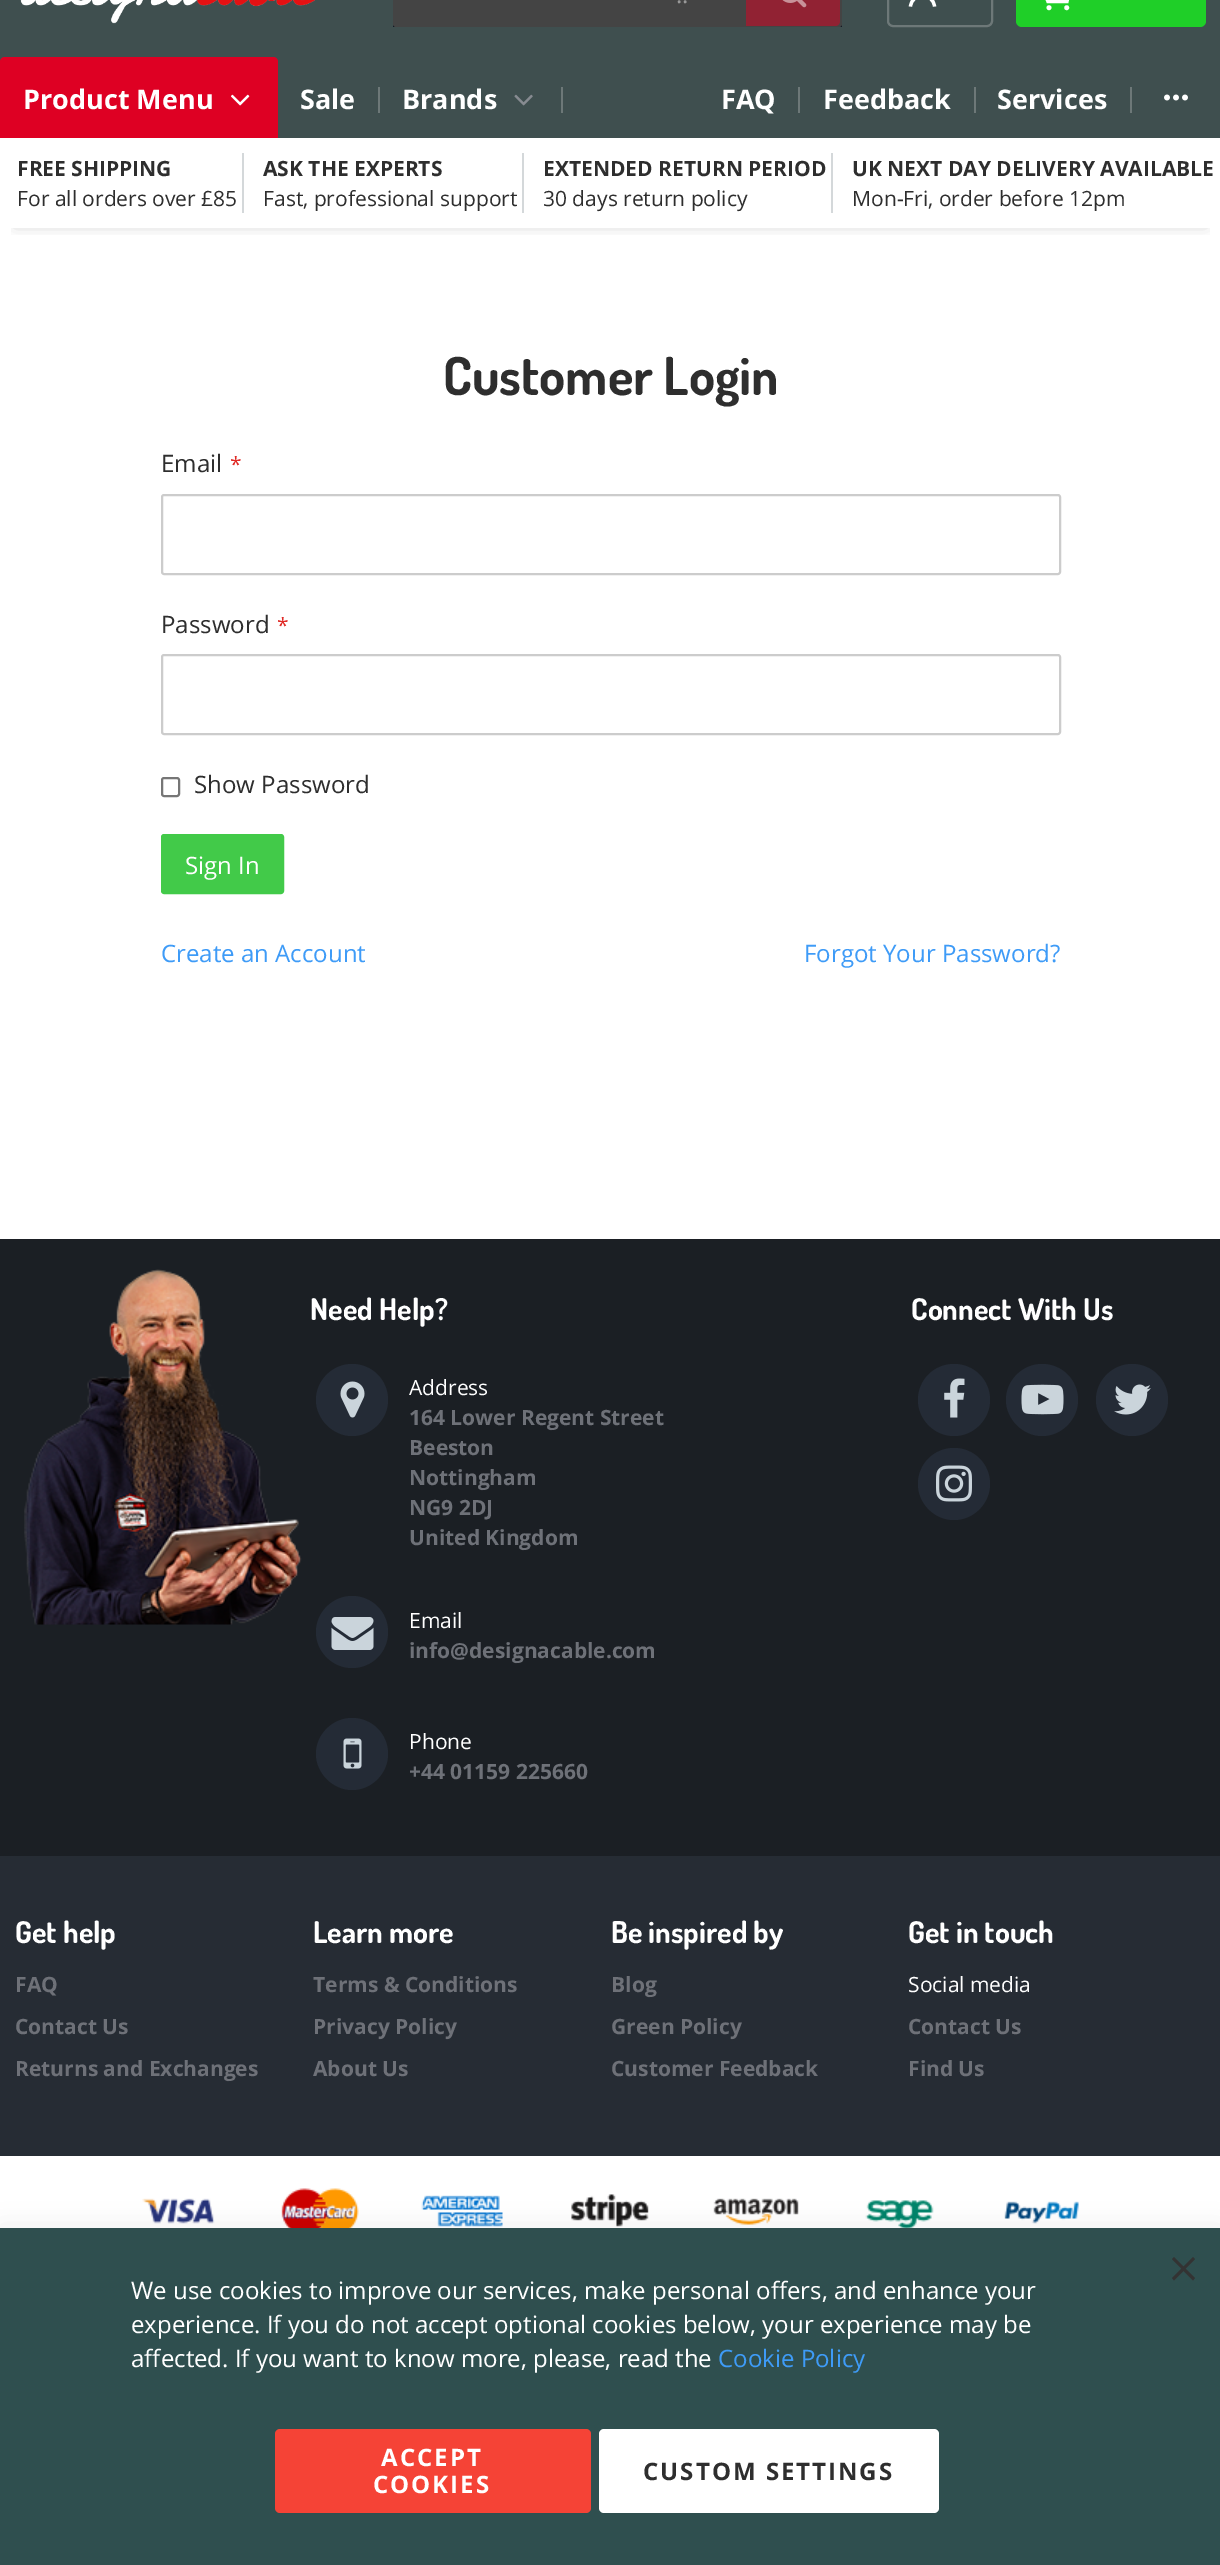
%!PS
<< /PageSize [1220 2565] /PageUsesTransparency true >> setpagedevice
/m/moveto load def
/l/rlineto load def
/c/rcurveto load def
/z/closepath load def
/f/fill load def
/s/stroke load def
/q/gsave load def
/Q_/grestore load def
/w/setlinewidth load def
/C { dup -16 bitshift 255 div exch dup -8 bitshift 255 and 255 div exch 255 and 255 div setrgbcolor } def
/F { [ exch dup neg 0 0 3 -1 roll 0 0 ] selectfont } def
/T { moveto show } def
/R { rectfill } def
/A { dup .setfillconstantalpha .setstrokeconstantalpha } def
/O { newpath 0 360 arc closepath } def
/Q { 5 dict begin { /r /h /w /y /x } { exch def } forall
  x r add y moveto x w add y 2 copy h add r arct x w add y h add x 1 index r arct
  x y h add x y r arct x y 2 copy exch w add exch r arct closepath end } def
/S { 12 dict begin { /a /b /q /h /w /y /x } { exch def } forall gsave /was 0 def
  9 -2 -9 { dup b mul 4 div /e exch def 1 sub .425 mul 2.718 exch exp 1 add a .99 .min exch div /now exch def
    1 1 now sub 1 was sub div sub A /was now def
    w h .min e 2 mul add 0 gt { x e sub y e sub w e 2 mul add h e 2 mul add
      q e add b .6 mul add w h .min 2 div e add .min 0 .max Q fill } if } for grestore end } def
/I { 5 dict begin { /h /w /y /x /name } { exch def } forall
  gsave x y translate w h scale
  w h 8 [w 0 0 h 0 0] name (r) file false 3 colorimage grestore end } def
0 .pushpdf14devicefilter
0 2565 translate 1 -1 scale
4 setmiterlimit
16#FFFFFF C
0 0 1220 2565 R
16#3F4F4F C
0 0 1220 138 R
(1.rgb) 20 0 295 24 I
16#101824 C
393 24 449 3 R
16#444444 C
393 -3 449 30 3 Q f
/OpenSans-Regular 24 F
16#999999 C
(..) 676 3 T
16#912233 C
746 -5 m 89 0 l 3 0 5 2 5 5 c 0 21 l 0 3 -2 5 -5 5 c -89 0 l z f
(2.rgb) 782 0 25 8 I
16#6D7878 C
2 w
888 -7 104 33 5 Q s
16#FFFFFF C
3.2 w
934.5 6.5 m -1.5 -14.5 -22.5 -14.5 -24 0 c s
16#1FCF28 C
1016 -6 190 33 6 Q f
16#FFFFFF C
1 setlinecap
1033.5 -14 m 8.5 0 l 6 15.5 l 19 0 l 3 -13.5 l s
1049 7.7 2.4 O f
1066.7 7.7 2.4 O f
16#DE0023 C
5 57 m 268 0 l 3 0 5 2 5 5 c 0 76 l -278 0 l 0 -76 l 0 -3 2 -5 5 -5 c z f
/OpenSans-Bold 27 F
16#FFFFFF C
(Product Menu) 23 109 T
(3.rgb) 231 94 19 12 I
(Sale) 300 109 T
16#6D7878 C
378 87 2 26 R
16#FFFFFF C
(Brands) 402 109 T
(4.rgb) 514 94 19 12 I
16#6D7878 C
561 87 2 26 R
16#FFFFFF C
(FAQ) 721 109 T
16#6D7878 C
798 87 2 26 R
16#FFFFFF C
(Feedback) 823 109 T
16#6D7878 C
974 87 2 26 R
16#FFFFFF C
(Services) 997 109 T
16#6D7878 C
1130 87 2 26 R
(5.rgb) 1164 94 24 7 I
q
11 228 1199 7 rectclip
16#000000 C
15 165 1191 60 0 7.5 .2 S
Q_
/OpenSans-Bold 21 F
16#2E2E2E C
(FREE SHIPPING) 17 176 T
/OpenSans-Regular 21 F
(For all orders over £85) 17 206 T
16#D4D8DA C
242 153 2 60 R
/OpenSans-Bold 21 F
16#2E2E2E C
(ASK THE EXPERTS) 263 176 T
/OpenSans-Regular 21 F
(Fast, professional support) 263 206 T
16#D4D8DA C
522 153 2 60 R
/OpenSans-Bold 21 F
16#2E2E2E C
(EXTENDED RETURN PERIOD) 543 176 T
/OpenSans-Regular 21 F
(30 days return policy) 543 206 T
16#D4D8DA C
831 153 2 60 R
/OpenSans-Bold 21 F
16#2E2E2E C
(UK NEXT DAY DELIVERY AVAILABLE) 852 176 T
/OpenSans-Regular 21 F
(Mon-Fri, order before 12pm) 852 206 T
/Dosis-Bold 52.5 F
(Customer Login) 443 395 T
/OpenSans-Regular 24 F
(Email) 161 472 T
/OpenSans-Regular 21 F
16#E02B27 C
(*) 230 472 T
16#CCCCCC C
2 w
0 setlinecap
162 495 898 79 2 Q s
/OpenSans-Regular 24 F
16#2E2E2E C
(Password) 161 633 T
/OpenSans-Regular 21 F
16#E02B27 C
(*) 277 633 T
16#CCCCCC C
162 655 898 79 2 Q s
16#767676 C
162 778 17 18 2 Q s
/OpenSans-Regular 24 F
16#2E2E2E C
(Show Password) 194 793 T
16#42CA49 C
162 835 121 58 2 Q q f Q_
s
16#FFFFFF C
(Sign In) 185 874 T
16#3E9BF7 C
(Forgot Your Password?) 804 962 T
(Create an Account) 161 962 T
16#262C34 C
0 1856 1220 300 R
16#1B1F24 C
0 1239 1220 617 R
(6.rgb) 24 1269 278 356 I
/Dosis-Bold 30 F
16#FFFFFF C
(Need Help?) 310 1320 T
16#242B36 C
388 1400 m 0 -20 -16 -36 -36 -36 c -19 0 -36 16 -36 36 c 0 19 17 36 36 36 c 20 0 36 -17 36 -36 c z f
(7.rgb) 340 1381 25 37 I
/OpenSans-Regular 21 F
16#FFFFFF C
(Address) 409 1395 T
/OpenSans-Bold 21 F
16#6E7178 C
(164 Lower Regent Street) 409 1425 T
(Beeston) 409 1455 T
(Nottingham) 409 1485 T
(NG9 2DJ) 409 1515 T
(United Kingdom) 409 1545 T
16#242B36 C
388 1632 m 0 -20 -16 -36 -36 -36 c -19 0 -36 16 -36 36 c 0 20 17 36 36 36 c 20 0 36 -16 36 -36 c z f
(8.rgb) 331 1617 43 33 I
/OpenSans-Regular 21 F
16#FFFFFF C
(Email) 409 1628 T
/OpenSans-Bold 21 F
16#6E7178 C
(info@designacable.com) 409 1658 T
16#242B36 C
388 1754 m 0 -20 -16 -36 -36 -36 c -19 0 -36 16 -36 36 c 0 19 17 36 36 36 c 20 0 36 -17 36 -36 c z f
(9.rgb) 343 1738 19 31 I
/OpenSans-Regular 21 F
16#FFFFFF C
(Phone) 409 1749 T
/OpenSans-Bold 21 F
16#6E7178 C
(+44 01159 225660) 409 1779 T
/Dosis-Bold 30 F
16#FFFFFF C
(Connect With Us) 911 1320 T
16#242B36 C
990 1400 m 0 -20 -16 -36 -36 -36 c -20 0 -36 16 -36 36 c 0 19 16 36 36 36 c 20 0 36 -17 36 -36 c z f
(10.rgb) 944 1378 21 40 I
1078 1400 m 0 -20 -16 -36 -36 -36 c -19 0 -36 16 -36 36 c 0 19 17 36 36 36 c 20 0 36 -17 36 -36 c z f
(11.rgb) 1021 1384 43 31 I
1168 1400 m 0 -20 -16 -36 -36 -36 c -19 0 -36 16 -36 36 c 0 19 17 36 36 36 c 20 0 36 -17 36 -36 c z f
(12.rgb) 1114 1384 37 31 I
990 1484 m 0 -20 -16 -36 -36 -36 c -20 0 -36 16 -36 36 c 0 19 16 36 36 36 c 20 0 36 -17 36 -36 c z f
(13.rgb) 936 1465 36 37 I
16#FFFFFF C
(Get help) 15 1943 T
/OpenSans-Bold 21 F
16#6E7178 C
(FAQ) 15 1992 T
(Contact Us) 15 2034 T
(Returns and Exchanges) 15 2076 T
/Dosis-Bold 30 F
16#FFFFFF C
(Learn more) 313 1943 T
/OpenSans-Bold 21 F
16#6E7178 C
(Terms & Conditions) 313 1992 T
(Privacy Policy) 313 2034 T
(About Us) 313 2076 T
/Dosis-Bold 30 F
16#FFFFFF C
(Be inspired by) 611 1943 T
/OpenSans-Bold 21 F
16#6E7178 C
(Blog) 611 1992 T
(Green Policy) 611 2034 T
(Customer Feedback) 611 2076 T
/Dosis-Bold 30 F
16#FFFFFF C
(Get in touch) 908 1943 T
/OpenSans-Regular 21 F
(Social media) 908 1992 T
/OpenSans-Bold 21 F
16#6E7178 C
(Contact Us) 908 2034 T
(Find Us) 908 2076 T
(14.rgb) 142 2188 937 40 I
16#000000 C
0 2225 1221 337 0 13.5 .06 S
16#2F4F4F C
0 2228 1220 337 R
16#333333 C
1193 2257 m 2 2 l -21 21.5 l -2 -2.5 l z f
1172 2259 m 2 -2 l 21 21 l -2 2.5 l z f
/OpenSans-Regular 24 F
16#FFFFFF C
(We use cookies to improve our services, make personal offers, and enhance your) 131 2299 T
(experience. If you do not accept optional cookies below, your experience may be) 131 2333 T
(affected. If you want to know more, please, read the) 131 2367 T
16#3E9BF7 C
(Cookie Policy) 718 2367 T
16#F54336 C
275 2429 316 84 5 Q f
/OpenSans-Bold 24 F
16#FFFFFF C
381 2466 m 2 0 (ACCEPT) ashow
373 2493 m 2 0 (COOKIES) ashow
599 2429 340 84 5 Q f
16#2E2E2E C
643 2480 m 2 0 (CUSTOM SETTINGS) ashow
.poppdf14devicefilter showpage
